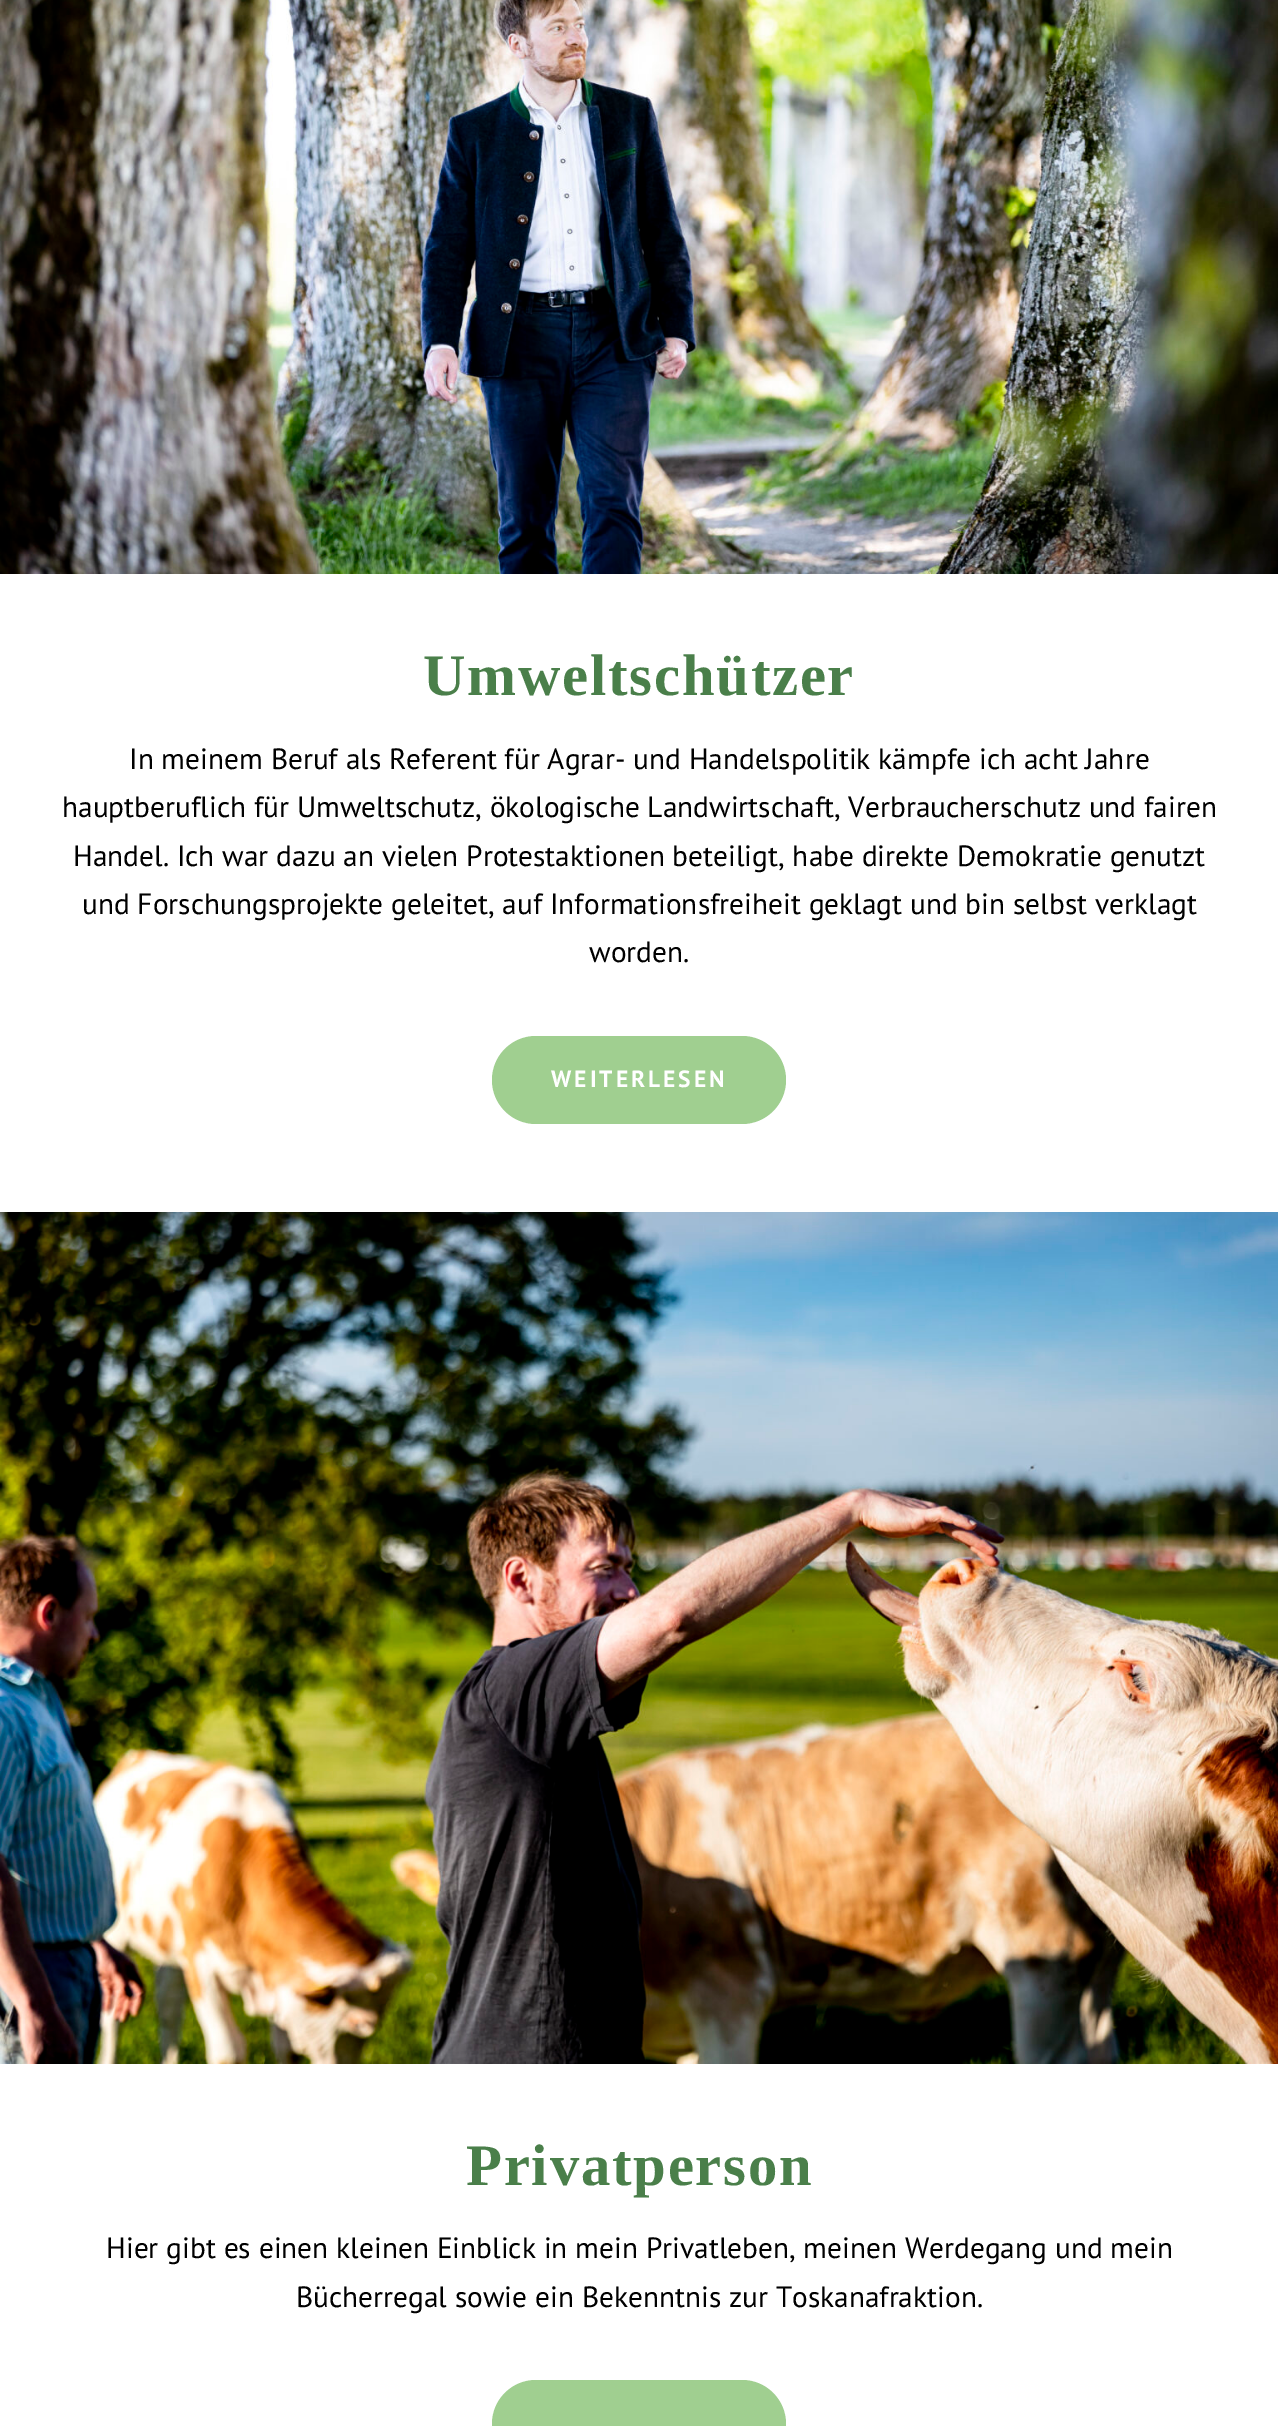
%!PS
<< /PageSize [1278 2426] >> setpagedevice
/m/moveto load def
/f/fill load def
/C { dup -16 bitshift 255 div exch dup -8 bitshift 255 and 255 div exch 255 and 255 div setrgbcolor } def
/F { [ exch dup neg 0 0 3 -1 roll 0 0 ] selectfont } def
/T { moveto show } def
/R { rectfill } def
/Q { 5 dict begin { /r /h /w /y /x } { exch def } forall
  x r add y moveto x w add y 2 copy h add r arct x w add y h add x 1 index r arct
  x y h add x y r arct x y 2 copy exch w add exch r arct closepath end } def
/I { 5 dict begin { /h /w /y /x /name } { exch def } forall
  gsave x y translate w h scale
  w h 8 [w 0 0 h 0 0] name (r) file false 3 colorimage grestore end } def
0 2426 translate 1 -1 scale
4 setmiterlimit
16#FFFFFF C
0 0 1278 2426 R
(1.rgb) 0 0 1278 574 I
/LiberationSerif-Bold 58.75 F
16#4A7F4A C
423 695 m 1.75 0 (Umweltschützer) ashow
/PTSans-Regular 29.35 F
16#000000 C
(In meinem Beruf als Referent für Agrar- und Handelspolitik kämpfe ich acht Jahre) 129 769 T
(hauptberuflich für Umweltschutz, ökologische Landwirtschaft, Verbraucherschutz und fairen) 62 817 T
(Handel. Ich war dazu an vielen Protestaktionen beteiligt, habe direkte Demokratie genutzt) 73 866 T
(und Forschungsprojekte geleitet, auf Informationsfreiheit geklagt und bin selbst verklagt) 82 914 T
(worden.) 589 962 T
16#A0CF90 C
492 1036 294 88 44 Q f
/PTSans-Bold 23.5 F
16#FFFFFF C
551 1087 m 3 0 (WEITERLESEN) ashow
(2.rgb) 0 1212 1278 852 I
/LiberationSerif-Bold 58.75 F
16#4A7F4A C
466 2185 m 1.75 0 (Privatperson) ashow
/PTSans-Regular 29.35 F
16#000000 C
(Hier gibt es einen kleinen Einblick in mein Privatleben, meinen Werdegang und mein) 106 2258 T
(Bücherregal sowie ein Bekenntnis zur Toskanafraktion.) 296 2307 T
16#A0CF90 C
492 2380 294 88 44 Q f
showpage
